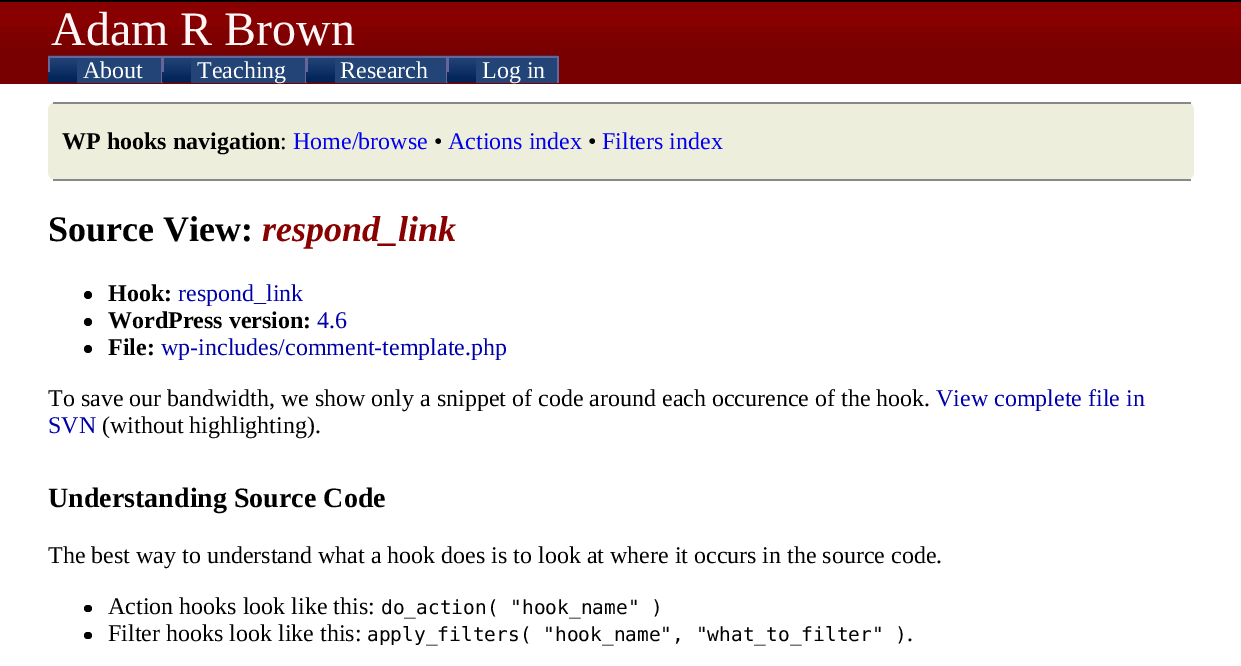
%!PS
<< /PageSize [1241 666] >> setpagedevice
/f/fill load def
/C { dup -16 bitshift 255 div exch dup -8 bitshift 255 and 255 div exch 255 and 255 div setrgbcolor } def
/F { [ exch dup neg 0 0 3 -1 roll 0 0 ] selectfont } def
/T { moveto show } def
/R { rectfill } def
/O { newpath 0 360 arc closepath } def
/Q { 5 dict begin { /r /h /w /y /x } { exch def } forall
  x r add y moveto x w add y 2 copy h add r arct x w add y h add x 1 index r arct
  x y h add x y r arct x y 2 copy exch w add exch r arct closepath end } def
/I { 5 dict begin { /h /w /y /x /name } { exch def } forall
  gsave x y translate w h scale
  w h 8 [w 0 0 h 0 0] name (r) file false 3 colorimage grestore end } def
0 666 translate 1 -1 scale
4 setmiterlimit
16#FFFFFF C
0 0 1241 666 R
16#880000 C
0 2 1241 24 R
(1.rgb) 0 26 1241 31 I
16#000000 C
0 0 1241 2 R
/LiberationSerif-Regular 48 F
16#FFF7F7 C
(Adam R Brown) 51 45 T
16#780001 C
0 57 1241 27 R
(2.rgb) 48 55 114 28 I
16#224477 C
77 56 6 27 R
16#666699 C
77 56 85 2 R
161 56 2 27 R
(3.rgb) 162 55 144 28 I
16#224477 C
191 56 6 27 R
16#666699 C
191 56 115 2 R
305 56 2 27 R
(4.rgb) 306 55 141 28 I
16#224477 C
335 56 6 27 R
16#666699 C
335 56 112 2 R
446 56 2 27 R
(5.rgb) 447 55 111 28 I
16#224477 C
83 58 78 25 R
/LiberationSerif-Regular 24 F
16#FFFFFF C
(About) 83 78 T
16#666699 C
48 56 29 2 R
48 56 2 16 R
16#224477 C
197 58 108 25 R
16#FFFFFF C
(Teaching) 197 78 T
16#666699 C
162 56 29 2 R
162 56 2 16 R
16#224477 C
341 58 105 25 R
16#FFFFFF C
(Research) 340 78 T
16#666699 C
306 56 29 2 R
306 56 2 16 R
16#224477 C
482 58 75 25 R
16#FFFFFF C
(Log in) 482 78 T
16#666699 C
447 56 29 2 R
447 56 2 16 R
16#224477 C
476 56 6 27 R
16#666699 C
476 56 82 2 R
557 56 2 27 R
16#EEEEDD C
48 102 1146 78 8 Q f
16#888888 C
53 102 1138 2 R
53 179 1138 2 R
/LiberationSerif-Bold 24 F
16#000000 C
(WP hooks navigation) 62 149 T
/LiberationSerif-Regular 24 F
(:) 280 149 T
16#0000EE C
(Home/browse) 293 149 T
16#000000 C
(•) 434 149 T
16#0000EE C
(Actions index) 448 149 T
16#000000 C
(•) 588 149 T
16#0000EE C
(Filters index) 602 149 T
/LiberationSerif-Bold 36 F
16#000000 C
(Source View:) 48 241 T
/LiberationSerif-BoldItalic 36 F
16#880000 C
(respond_link) 262 241 T
16#000000 C
88 295 4 O f
/LiberationSerif-Bold 24 F
(Hook:) 108 301 T
/LiberationSerif-Regular 24 F
16#0000AA C
(respond_link) 178 301 T
16#000000 C
88 322 4 O f
/LiberationSerif-Bold 24 F
(WordPress version:) 108 328 T
/LiberationSerif-Regular 24 F
16#0000AA C
(4.6) 317 328 T
16#000000 C
88 349 4 O f
/LiberationSerif-Bold 24 F
(File:) 108 355 T
/LiberationSerif-Regular 24 F
16#0000AA C
(wp-includes/comment-template.php) 161 355 T
16#000000 C
(To save our bandwidth, we show only a snippet of code around each occurence of the hook.) 48 406 T
16#0000AA C
(View complete file in) 936 406 T
(SVN) 48 433 T
16#000000 C
(\(without highlighting\).) 102 433 T
/LiberationSerif-Bold 28 F
(Understanding Source Code) 48 507 T
/LiberationSerif-Regular 24 F
(The best way to understand what a hook does is to look at where it occurs in the source code.) 48 563 T
84 605 8 7 3.5 Q f
(Action hooks look like this:) 108 614 T
/DejaVuSansMono-Regular 19.5 F
(do_action\( "hook_name" \)) 381 614 T
84 632 8 7 3.5 Q f
/LiberationSerif-Regular 24 F
(Filter hooks look like this:) 108 641 T
/DejaVuSansMono-Regular 19.5 F
(apply_filters\( "hook_name", "what_to_filter" \)) 367 641 T
/LiberationSerif-Regular 24 F
(.) 907 641 T
showpage
